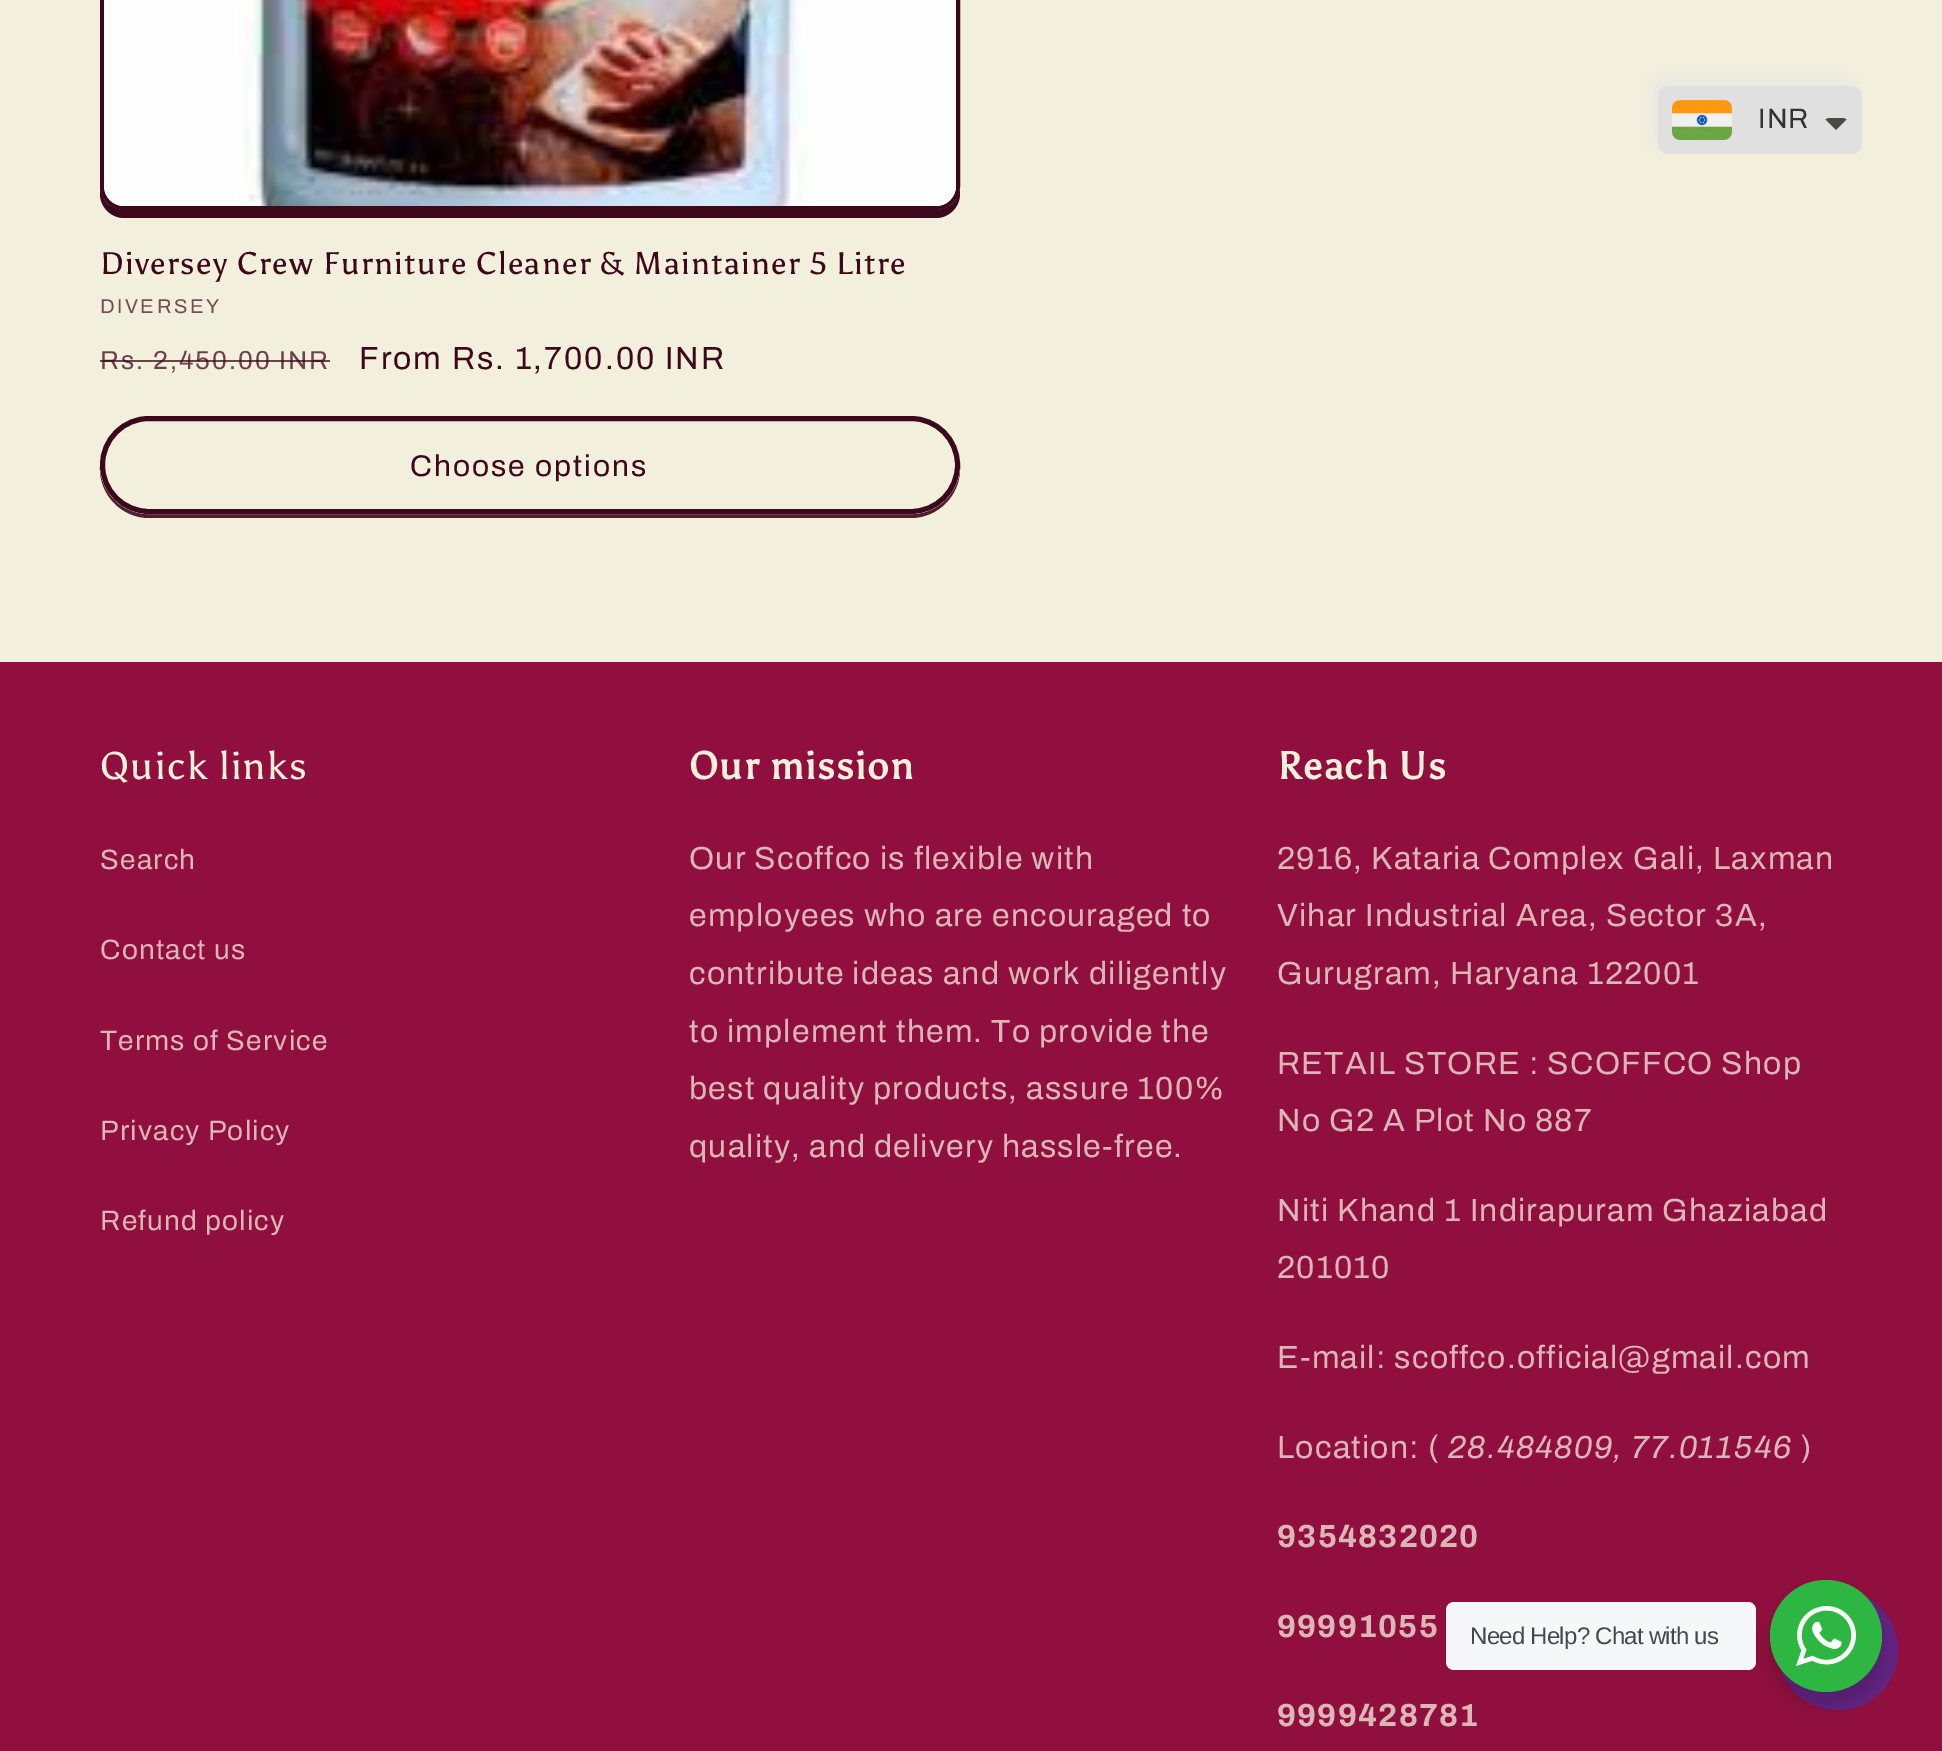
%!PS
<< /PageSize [1942 1751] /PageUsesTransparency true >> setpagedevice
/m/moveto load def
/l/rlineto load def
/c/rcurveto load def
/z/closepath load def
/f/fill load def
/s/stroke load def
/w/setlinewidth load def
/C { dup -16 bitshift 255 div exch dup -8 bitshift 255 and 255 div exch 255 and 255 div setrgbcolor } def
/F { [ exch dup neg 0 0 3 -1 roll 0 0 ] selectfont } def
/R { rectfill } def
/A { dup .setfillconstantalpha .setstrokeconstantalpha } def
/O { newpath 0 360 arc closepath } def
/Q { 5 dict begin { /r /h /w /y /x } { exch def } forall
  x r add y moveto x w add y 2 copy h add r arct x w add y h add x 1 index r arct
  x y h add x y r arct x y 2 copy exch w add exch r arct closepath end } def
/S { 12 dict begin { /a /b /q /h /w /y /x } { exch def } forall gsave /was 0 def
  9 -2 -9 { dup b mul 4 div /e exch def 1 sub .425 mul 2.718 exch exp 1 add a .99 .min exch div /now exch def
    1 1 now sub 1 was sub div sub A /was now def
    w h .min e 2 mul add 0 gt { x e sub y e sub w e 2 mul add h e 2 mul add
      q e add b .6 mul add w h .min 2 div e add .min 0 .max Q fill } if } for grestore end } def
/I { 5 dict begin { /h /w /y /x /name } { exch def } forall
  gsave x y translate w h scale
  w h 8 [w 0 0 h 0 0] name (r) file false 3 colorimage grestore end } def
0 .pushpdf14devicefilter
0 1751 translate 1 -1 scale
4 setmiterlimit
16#F2EFDD C
0 0 1942 1751 R
16#E8E8E2 C
1650 78 204 68 10 9 1 S
16#E0E0E0 C
1658 86 204 68 10 Q f
(1.rgb) 1672 100 60 40 I
/Archivo-Regular 28 F
16#333333 C
1758 128 m 1.2 0 (INR) ashow
16#474942 C
1830 118 m -2 0 -3 .5 -4.5 1.5 c 10.5 10.5 l 10.5 -10.5 l -1.5 -1 -2.5 -1.5 -4.5 -1.5 c z f
16#3D081B C
4 w
102 -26 856 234 22 Q s
100 186 m 0 8 l 0 13 11 24 24 24 c 812 0 l 13 0 24 -11 24 -24 c 0 -8 l 0 13 -11 24 -24 24 c -812 0 l -13 0 -24 -11 -24 -24 c z f
(2.rgb) 104 0 852 206 I
/Asul-Regular 31.2 F
100 274 m 1.45 0 (Diversey Crew Furniture Cleaner & Maintainer 5 Litre) ashow
/Archivo-Regular 20 F
16#734D55 C
100 313 m 2.5 0 (DIVERSEY) ashow
/Archivo-Regular 26 F
16#6A424C C
100 369 m 2 0 (Rs. 2,450.00 INR) ashow
0.75 A
16#3D081B C
100 360 230 2 R
/Archivo-Regular 32 F
1 A
359 369 m 2 0 (From Rs. 1,700.00 INR) ashow
16#4F1F2E C
100 467 m -1 28 22 51 49 51 c 762 0 l 27 0 50 -23 49 -51 c -1 26 -23 47 -49 47 c -762 0 l -26 0 -48 -21 -49 -47 c z f
16#F2EFDD C
100 416 860 98 49 Q f
102 418 856 94 47 Q s
16#3D081B C
5 w
102.5 418.5 855 93 46.5 Q s
/Archivo-Regular 30 F
410 476 m 2 0 (Choose options) ashow
16#910F3F C
0 662 1942 1089 R
/Asul-Regular 38.5 F
16#F2EFDD C
100 779 m 1.45 0 (Quick links) ashow
/Archivo-Regular 28 F
16#DAB7B6 C
100 869 m 1.2 0 (Search) ashow
100 959 m 1.2 0 (Contact us) ashow
100 1050 m 1.2 0 (Terms of Service) ashow
100 1140 m 1.2 0 (Privacy Policy) ashow
100 1230 m 1.2 0 (Refund policy) ashow
/Asul-Bold 38.5 F
16#F2EFDD C
689 779 m 1.45 0 (Our mission) ashow
/Archivo-Regular 32 F
16#DAB7B6 C
689 869 m 1.2 0 (Our Scoffco is flexible with) ashow
689 926 m 1.2 0 (employees who are encouraged to) ashow
689 984 m 1.2 0 (contribute ideas and work diligently) ashow
689 1042 m 1.2 0 (to implement them. To provide the) ashow
689 1099 m 1.2 0 (best quality products, assure 100%) ashow
689 1157 m 1.2 0 (quality, and delivery hassle-free.) ashow
/Asul-Bold 38.5 F
16#F2EFDD C
1277 779 m 1.45 0 (Reach Us) ashow
/Archivo-Regular 32 F
16#DAB7B6 C
1277 869 m 1.2 0 (2916, Kataria Complex Gali, Laxman) ashow
1277 926 m 1.2 0 (Vihar Industrial Area, Sector 3A,) ashow
1277 984 m 1.2 0 (Gurugram, Haryana 122001) ashow
1277 1074 m 1.2 0 (RETAIL STORE : SCOFFCO Shop) ashow
1277 1131 m 1.2 0 (No G2 A Plot No 887) ashow
1277 1221 m 1.2 0 (Niti Khand 1 Indirapuram Ghaziabad) ashow
1277 1278 m 1.2 0 (201010) ashow
1277 1368 m 1.2 0 (E-mail: scoffco.official@gmail.com) ashow
1277 1458 m 1.2 0 (Location: \() ashow
/Archivo-Italic 32 F
1448 1458 m 1.2 0 (28.484809, 77.011546) ashow
/Archivo-Regular 32 F
1800 1458 m 1.2 0 (\)) ashow
/Archivo-Bold 32 F
1277 1547 m 1.2 0 (9354832020) ashow
1277 1637 m 1.2 0 (99991055) ashow
1277 1726 m 1.2 0 (9999428781) ashow
16#622383 C
1838 1650 60 O f
(3.rgb) 1868 1670 2 2 I
16#000000 C
1766 1588 120 120 60 8 .14 S
16#F5F7F9 C
1446 1602 310 68 8 Q f
/LiberationSans-Regular 24 F
16#43474E C
1470 1644 m -.75 0 (Need Help? Chat with us) ashow
16#2DB742 C
1826 1636 56 O f
(4.rgb) 1796 1606 60 60 I
.poppdf14devicefilter showpage
